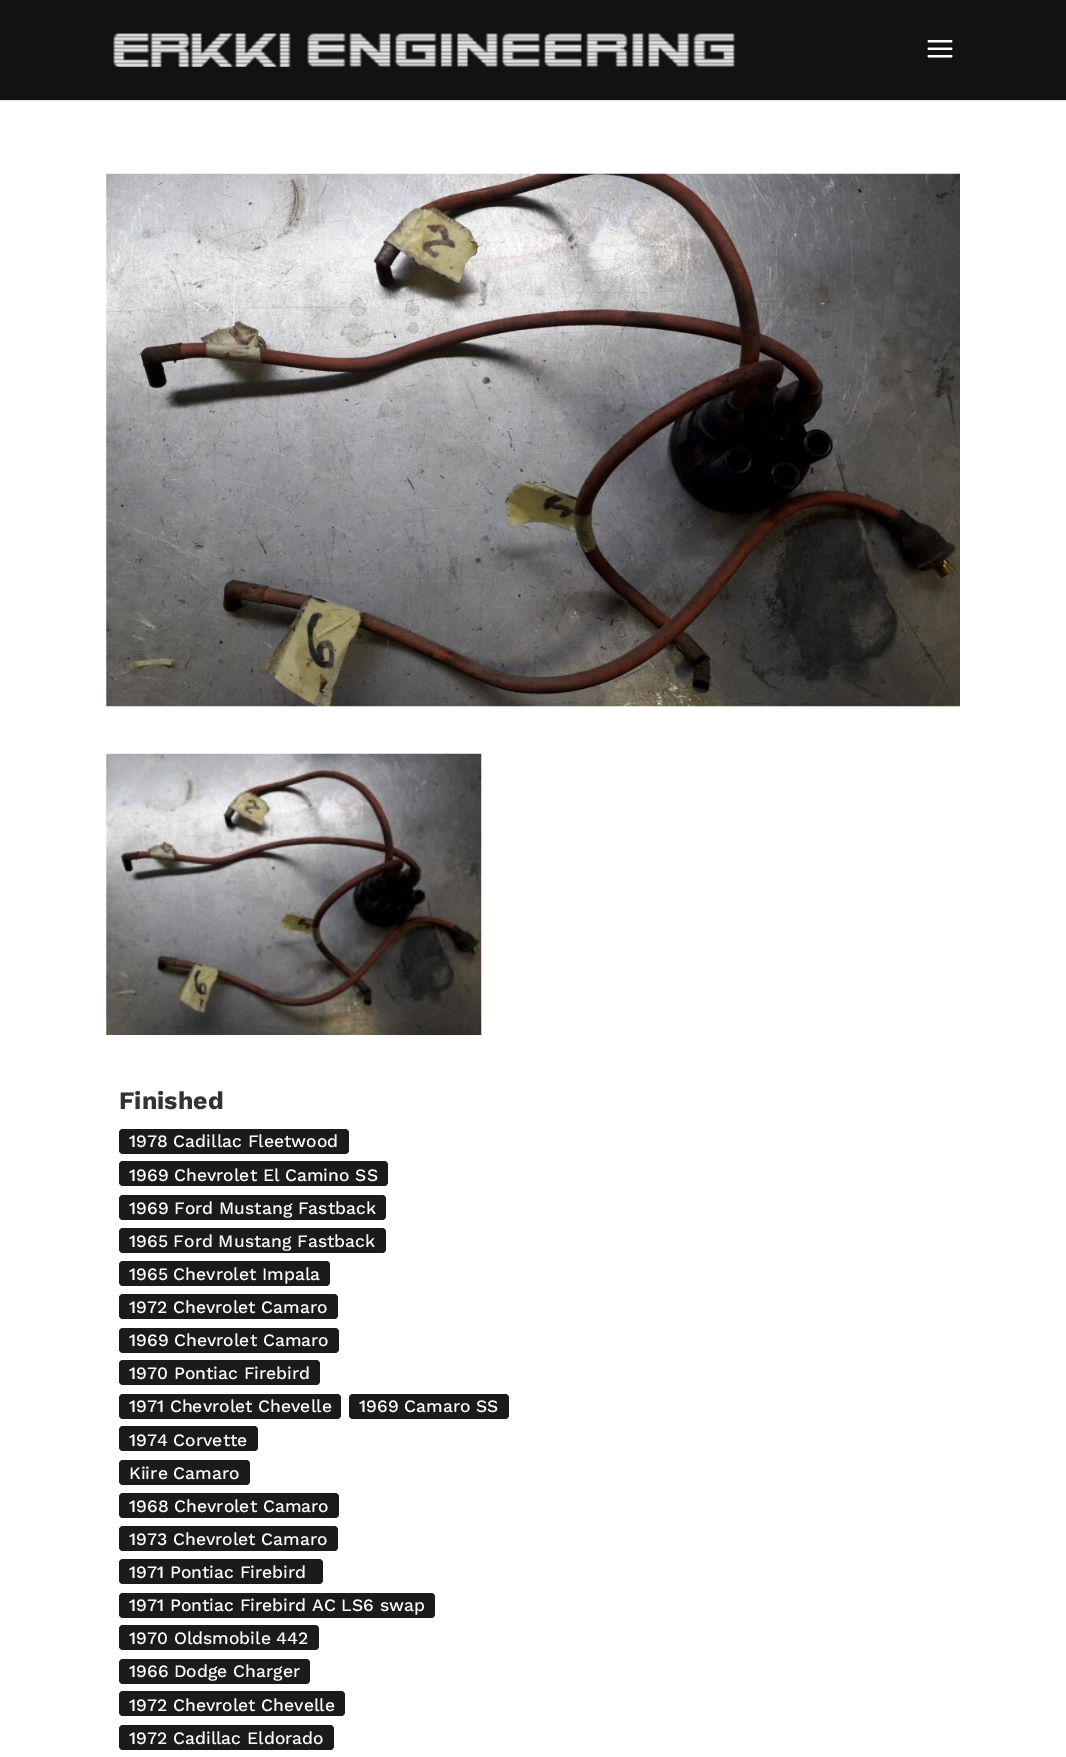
%!PS
<< /PageSize [1066 1757] >> setpagedevice
/f/fill load def
/C { dup -16 bitshift 255 div exch dup -8 bitshift 255 and 255 div exch 255 and 255 div setrgbcolor } def
/F { [ exch dup neg 0 0 3 -1 roll 0 0 ] selectfont } def
/T { moveto show } def
/R { rectfill } def
/Q { 5 dict begin { /r /h /w /y /x } { exch def } forall
  x r add y moveto x w add y 2 copy h add r arct x w add y h add x 1 index r arct
  x y h add x y r arct x y 2 copy exch w add exch r arct closepath end } def
/I { 5 dict begin { /h /w /y /x /name } { exch def } forall
  gsave x y translate w h scale
  w h 8 [w 0 0 h 0 0] name (r) file false 3 colorimage grestore end } def
0 1757 translate 1 -1 scale
4 setmiterlimit
16#FFFFFF C
0 0 1066 1757 R
16#E6E6E6 C
0 100 1066 1 R
16#121212 C
0 0 1066 100 R
(1.rgb) 113 33 622 34 I
(2.rgb) 927 40 26 18 I
(3.rgb) 106 173 854 534 I
(4.rgb) 106 753 376 282 I
/WorkSans-Bold 25 F
16#333333 C
(Finished) 119 1109 T
16#1B1B1B C
119 1129 230 25 4 Q f
/WorkSans-Medium 17.5 F
16#FFFFFF C
(1978 Cadillac Fleetwood) 129 1147 T
16#1B1B1B C
119 1161 269 25 4 Q f
16#FFFFFF C
(1969 Chevrolet El Camino SS) 129 1181 T
16#1B1B1B C
119 1195 267 25 4 Q f
16#FFFFFF C
(1969 Ford Mustang Fastback) 129 1214 T
16#1B1B1B C
119 1228 267 25 4 Q f
16#FFFFFF C
(1965 Ford Mustang Fastback) 129 1247 T
16#1B1B1B C
119 1261 211 25 4 Q f
16#FFFFFF C
(1965 Chevrolet Impala) 129 1280 T
16#1B1B1B C
119 1294 219 25 4 Q f
16#FFFFFF C
(1972 Chevrolet Camaro) 129 1313 T
16#1B1B1B C
119 1328 220 25 4 Q f
16#FFFFFF C
(1969 Chevrolet Camaro) 129 1346 T
16#1B1B1B C
119 1360 201 25 4 Q f
16#FFFFFF C
(1970 Pontiac Firebird) 129 1379 T
16#1B1B1B C
119 1394 222 25 4 Q f
16#FFFFFF C
(1971 Chevrolet Chevelle) 129 1412 T
16#1B1B1B C
349 1394 160 25 4 Q f
16#FFFFFF C
(1969 Camaro SS) 359 1412 T
16#1B1B1B C
119 1426 139 25 4 Q f
16#FFFFFF C
(1974 Corvette) 129 1446 T
16#1B1B1B C
119 1460 131 25 4 Q f
16#FFFFFF C
(Kiire Camaro) 129 1479 T
16#1B1B1B C
119 1493 220 25 4 Q f
16#FFFFFF C
(1968 Chevrolet Camaro) 129 1512 T
16#1B1B1B C
119 1526 219 25 4 Q f
16#FFFFFF C
(1973 Chevrolet Camaro) 129 1545 T
16#1B1B1B C
119 1559 204 25 4 Q f
16#FFFFFF C
(1971 Pontiac Firebird) 129 1578 T
16#1B1B1B C
119 1593 316 25 4 Q f
16#FFFFFF C
(1971 Pontiac Firebird AC LS6 swap) 129 1611 T
16#1B1B1B C
119 1625 200 25 4 Q f
16#FFFFFF C
(1970 Oldsmobile 442) 129 1644 T
16#1B1B1B C
119 1659 191 25 4 Q f
16#FFFFFF C
(1966 Dodge Charger) 129 1677 T
16#1B1B1B C
119 1691 226 25 4 Q f
16#FFFFFF C
(1972 Chevrolet Chevelle) 129 1711 T
16#1B1B1B C
119 1725 215 25 4 Q f
16#FFFFFF C
(1972 Cadillac Eldorado) 129 1744 T
showpage
